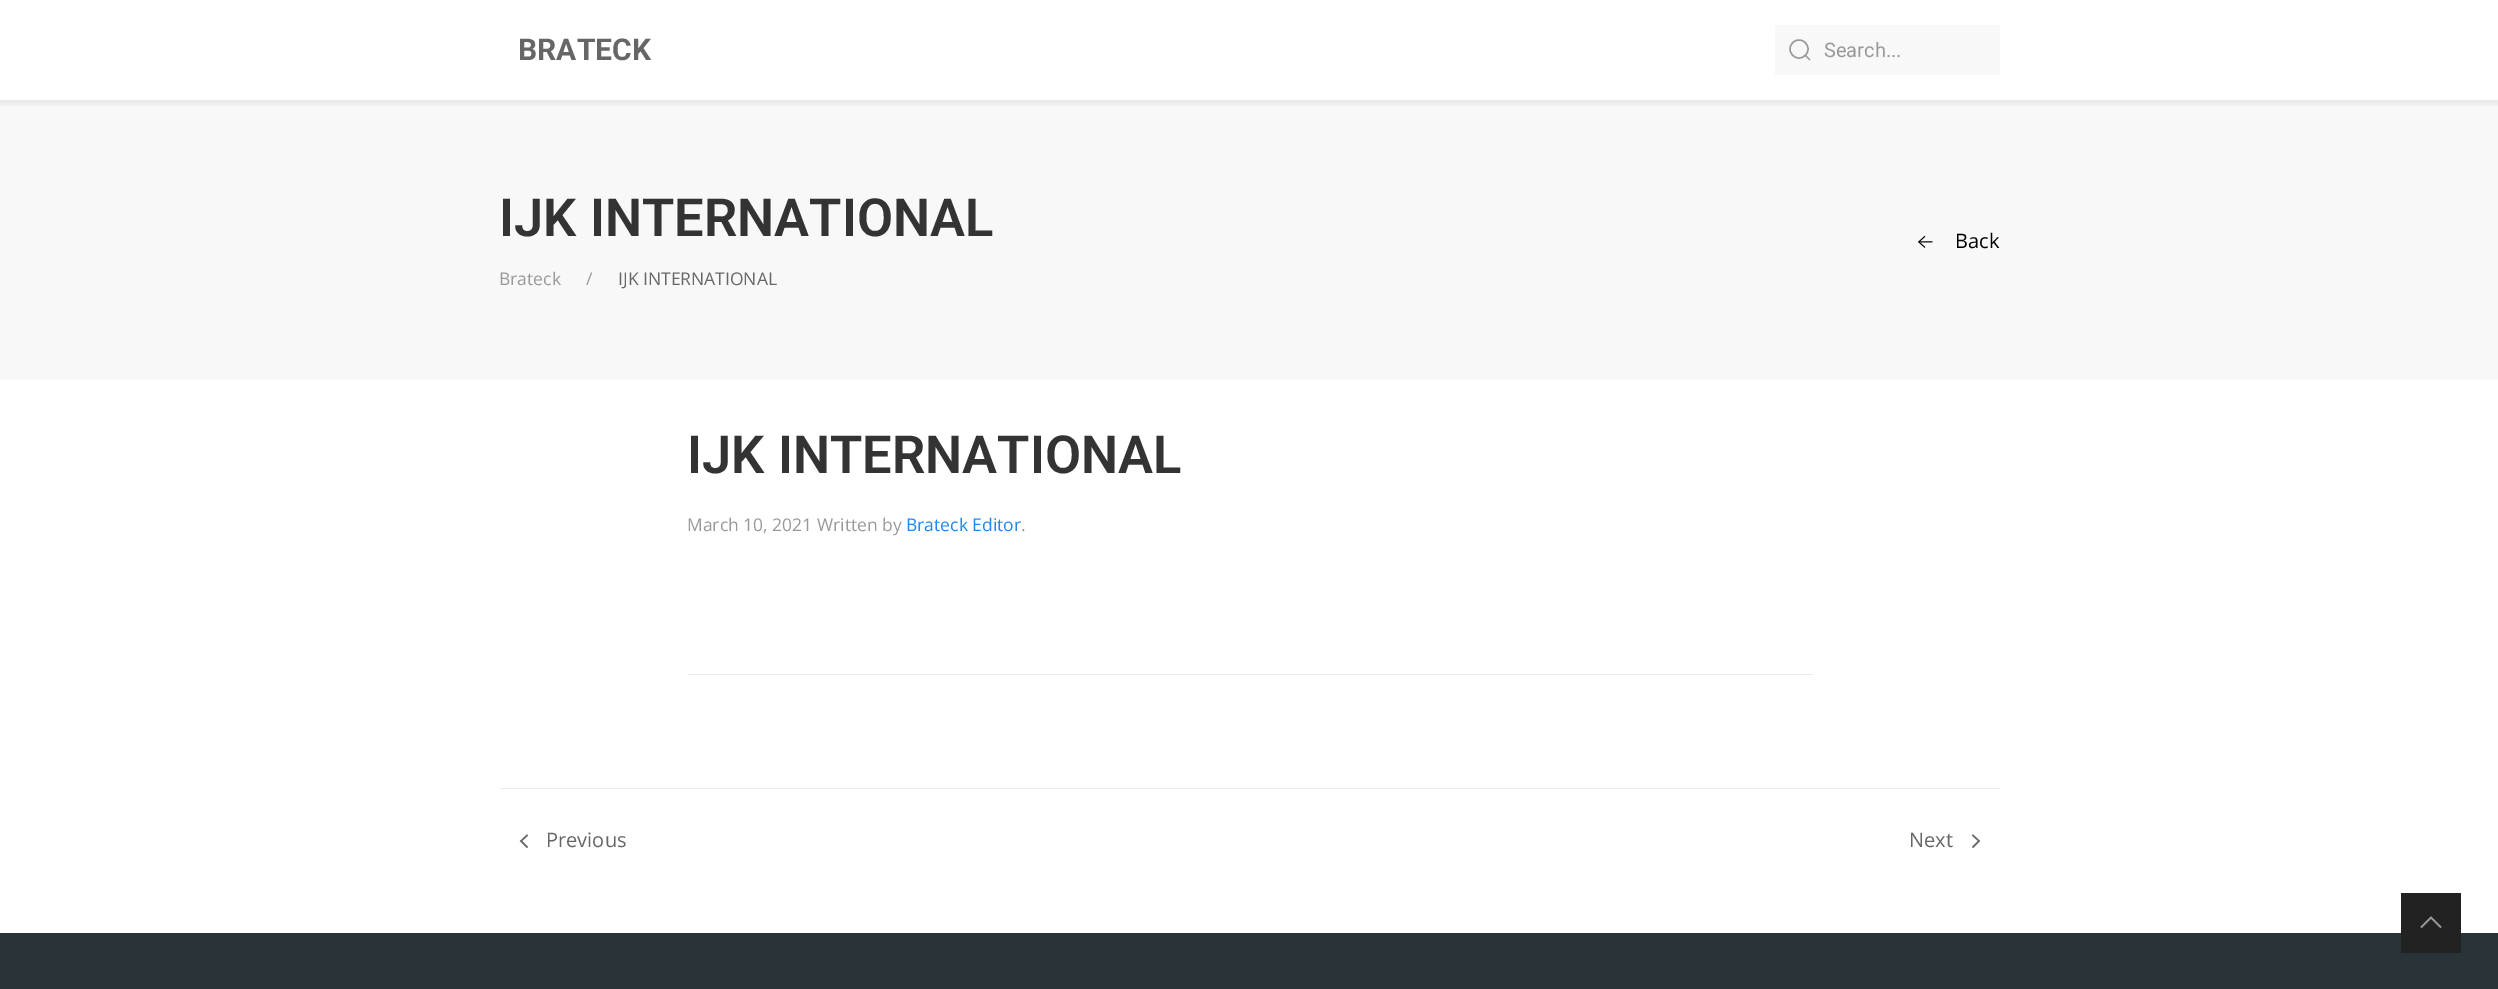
%!PS
<< /PageSize [2498 989] /PageUsesTransparency true >> setpagedevice
/m/moveto load def
/l/rlineto load def
/z/closepath load def
/s/stroke load def
/q/gsave load def
/Q_/grestore load def
/w/setlinewidth load def
/C { dup -16 bitshift 255 div exch dup -8 bitshift 255 and 255 div exch 255 and 255 div setrgbcolor } def
/F { [ exch dup neg 0 0 3 -1 roll 0 0 ] selectfont } def
/T { moveto show } def
/R { rectfill } def
/A { dup .setfillconstantalpha .setstrokeconstantalpha } def
/O { newpath 0 360 arc closepath } def
/Q { 5 dict begin { /r /h /w /y /x } { exch def } forall
  x r add y moveto x w add y 2 copy h add r arct x w add y h add x 1 index r arct
  x y h add x y r arct x y 2 copy exch w add exch r arct closepath end } def
/S { 12 dict begin { /a /b /q /h /w /y /x } { exch def } forall gsave /was 0 def
  9 -2 -9 { dup b mul 4 div /e exch def 1 sub .425 mul 2.718 exch exp 1 add a .99 .min exch div /now exch def
    1 1 now sub 1 was sub div sub A /was now def
    w h .min e 2 mul add 0 gt { x e sub y e sub w e 2 mul add h e 2 mul add
      q e add b .6 mul add w h .min 2 div e add .min 0 .max Q fill } if } for grestore end } def
/I { 5 dict begin { /h /w /y /x /name } { exch def } forall
  gsave x y translate w h scale
  w h 8 [w 0 0 h 0 0] name (r) file false 3 colorimage grestore end } def
0 .pushpdf14devicefilter
0 989 translate 1 -1 scale
4 setmiterlimit
16#FFFFFF C
0 0 2498 989 R
16#F8F8F8 C
0 100 2498 280 R
q
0 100 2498 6 rectclip
16#000000 C
0 3 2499 100 0 5 .08 S
Q_
/Roboto-Bold 30 F
16#666666 C
(BRATECK) 518 60 T
16#F8F8F8 C
1775 25 225 50 R
16#999999 C
1.4 w
1799 49 9 O s
1805 55 m 5 5 l z s
/Roboto-Regular 20 F
(Search...) 1824 57 T
/Roboto-SemiBold 52.5 F
16#333333 C
(IJK INTERNATIONAL) 499 236 T
/OpenSans-Regular 17.5 F
16#999999 C
(Brateck) 499 285 T
(/) 586 285 T
16#666666 C
(IJK INTERNATIONAL) 618 285 T
(1.rgb) 1918 235 15 13 I
/OpenSans-Regular 20 F
16#000000 C
(Back) 1955 248 T
/Roboto-SemiBold 52.5 F
16#333333 C
(IJK INTERNATIONAL) 687 473 T
/OpenSans-Regular 17.5 F
16#999999 C
(March 10, 2021 Written by) 687 531 T
16#1E87F0 C
(Brateck Editor) 906 531 T
16#999999 C
(.) 1021 531 T
16#EBEBEB C
688 674 1125 1 R
500 788 1500 1 R
16#666666 C
1.5 w
527.5 835 m -6.5 6 l 6.5 6.5 l s
/OpenSans-Regular 20 F
(Previous) 546 847 T
(Next) 1909 847 T
1972.5 835 m 6.5 6 l -6.5 6.5 l s
16#2A3438 C
0 933 2498 56 R
16#222222 C
2401 893 60 60 R
16#999999 C
2421 927.5 m 10 -10 l 10 10 l s
.poppdf14devicefilter showpage
